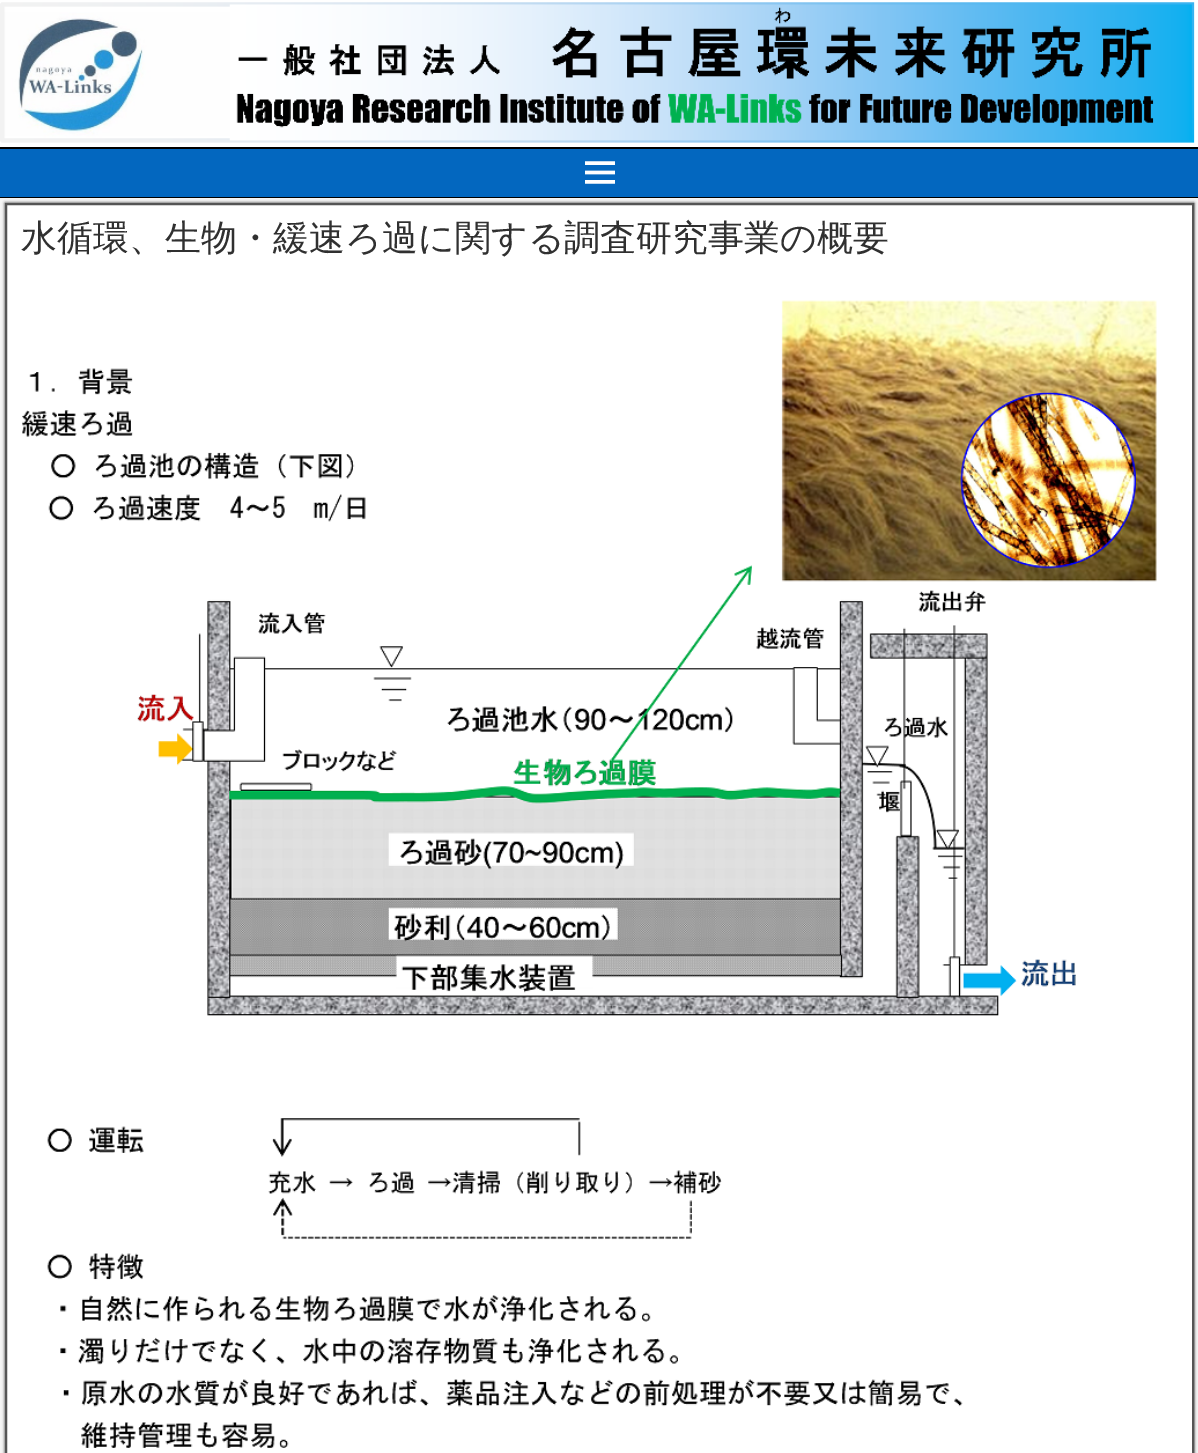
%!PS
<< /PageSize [1198 1453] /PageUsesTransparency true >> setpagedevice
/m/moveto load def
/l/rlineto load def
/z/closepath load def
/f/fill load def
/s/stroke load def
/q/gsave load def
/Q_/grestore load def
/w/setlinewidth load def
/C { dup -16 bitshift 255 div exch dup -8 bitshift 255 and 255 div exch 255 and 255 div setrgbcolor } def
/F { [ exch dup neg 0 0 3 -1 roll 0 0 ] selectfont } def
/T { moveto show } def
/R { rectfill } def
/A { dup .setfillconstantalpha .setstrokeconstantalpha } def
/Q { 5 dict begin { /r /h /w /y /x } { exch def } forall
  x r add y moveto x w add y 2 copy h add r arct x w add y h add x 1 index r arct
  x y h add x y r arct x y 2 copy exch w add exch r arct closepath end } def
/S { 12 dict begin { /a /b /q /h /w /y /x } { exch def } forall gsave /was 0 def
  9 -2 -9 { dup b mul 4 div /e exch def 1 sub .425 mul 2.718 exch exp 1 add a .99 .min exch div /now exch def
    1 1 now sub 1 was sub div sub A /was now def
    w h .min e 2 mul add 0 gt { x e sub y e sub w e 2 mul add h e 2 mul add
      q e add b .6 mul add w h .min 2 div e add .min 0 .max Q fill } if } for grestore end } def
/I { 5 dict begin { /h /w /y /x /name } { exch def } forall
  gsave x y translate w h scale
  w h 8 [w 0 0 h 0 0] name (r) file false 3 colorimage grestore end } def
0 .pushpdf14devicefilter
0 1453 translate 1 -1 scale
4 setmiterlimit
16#FFFFFF C
0 0 1198 1453 R
16#000000 C
0 147 1198 2 R
(1.rgb) 0 2 1195 141 I
16#0367BF C
0 149 1198 48 R
16#000000 C
0 197 1198 1 R
(2.rgb) 585 161 30 23 I
16#F5F5F5 C
0 198 1198 1255 R
16#333333 C
5 203 1189 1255 0 1.5 1 S
16#FFFFFF C
6 204 m 1187 0 l 0 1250 l -1187 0 l z q f Q_
16#555555 C
2 w
s
/WenQuanYiZenHei-Medium 36 F
16#303030 C
(水循環、生物・緩速ろ過に関する調査研究事業の概要) 21 250 T
(3.rgb) 22 300 1135 1148 I
.poppdf14devicefilter showpage
